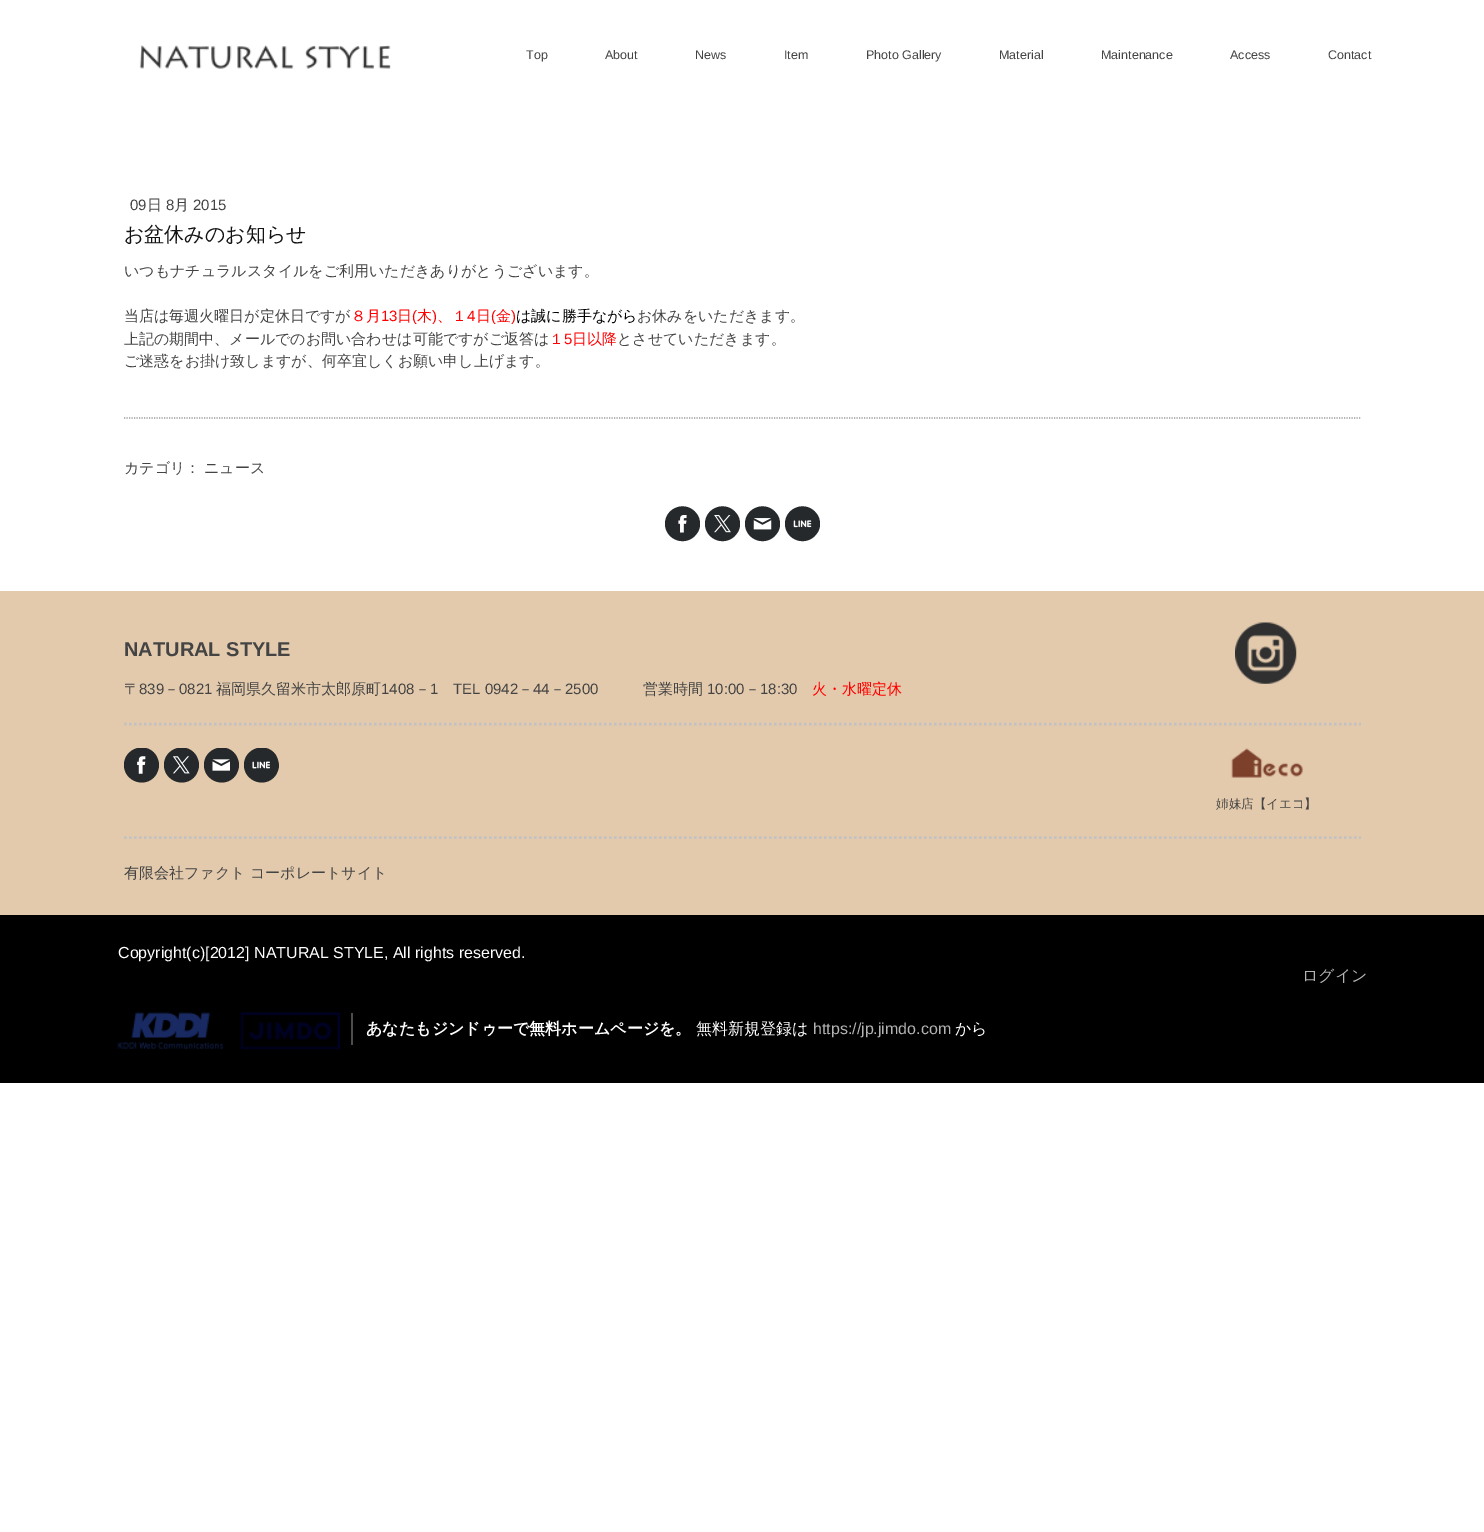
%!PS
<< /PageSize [1484 1532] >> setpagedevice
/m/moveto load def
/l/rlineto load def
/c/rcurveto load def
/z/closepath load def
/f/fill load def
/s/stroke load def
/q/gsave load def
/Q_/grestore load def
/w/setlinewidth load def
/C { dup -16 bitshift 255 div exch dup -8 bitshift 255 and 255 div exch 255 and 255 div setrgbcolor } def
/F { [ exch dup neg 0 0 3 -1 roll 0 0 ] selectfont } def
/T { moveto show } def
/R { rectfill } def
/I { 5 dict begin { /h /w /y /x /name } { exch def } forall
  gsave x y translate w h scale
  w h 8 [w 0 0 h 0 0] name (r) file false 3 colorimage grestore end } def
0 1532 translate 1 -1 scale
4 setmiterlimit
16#FFFFFF C
0 0 1484 1532 R
(1.rgb) 139 45 252 24 I
/LiberationSans-Regular 12.5 F
16#444444 C
(Top) 526 59 T
(About) 605 59 T
(News) 695 59 T
(Item) 784 59 T
(Photo Gallery) 866 59 T
(Material) 999 59 T
(Maintenance) 1101 59 T
(Access) 1230 59 T
(Contact) 1328 59 T
/LiberationSans-Regular 15 F
(09) 130 210 T
/WenQuanYiZenHei-Medium 15 F
(日) 147 210 T
/LiberationSans-Regular 15 F
(8) 166 210 T
/WenQuanYiZenHei-Medium 15 F
(月) 174 210 T
/LiberationSans-Regular 15 F
(2015) 193 210 T
/WenQuanYiZenHei-Medium 20 F
16#121212 C
(お盆休みのお知らせ) 124 241 T
/WenQuanYiZenHei-Medium 15 F
16#444444 C
(いつもナチュラルスタイルをご利用いただきありがとうございます。) 124 276 T
(当店は毎週火曜日が定休日ですが) 124 321 T
16#FF0000 C
(８月) 351 321 T
/LiberationSans-Regular 15 F
(13) 381 321 T
/WenQuanYiZenHei-Medium 15 F
(日) 397 321 T
/LiberationSans-Regular 15 F
(\() 412 321 T
/WenQuanYiZenHei-Medium 15 F
(木) 417 321 T
/LiberationSans-Regular 15 F
(\)) 432 321 T
/WenQuanYiZenHei-Medium 15 F
(、１) 437 321 T
/LiberationSans-Regular 15 F
(4) 467 321 T
/WenQuanYiZenHei-Medium 15 F
(日) 476 321 T
/LiberationSans-Regular 15 F
(\() 491 321 T
/WenQuanYiZenHei-Medium 15 F
(金) 496 321 T
/LiberationSans-Regular 15 F
(\)) 511 321 T
/WenQuanYiZenHei-Medium 15 F
16#000000 C
(は誠に勝手ながら) 516 321 T
16#444444 C
(お休みをいただきます。) 637 321 T
(上記の期間中、メールでのお問い合わせは可能ですがご返答は) 124 344 T
16#FF0000 C
(１) 549 344 T
/LiberationSans-Regular 15 F
(5) 564 344 T
/WenQuanYiZenHei-Medium 15 F
(日以降) 572 344 T
16#444444 C
(とさせていただきます。) 617 344 T
(ご迷惑をお掛け致しますが、何卒宜しくお願い申し上げます。) 124 366 T
16#999999 C
1.2 w
[1.25 1.25] 0 setdash
124 418 m 1237 0 l s
16#444444 C
(カテゴリ：) 124 473 T
(ニュース) 204 473 T
16#25292B C
665 523.5 m 0 17 21.5 24 31.5 10.5 c 2.5 -3 3.5 -6.5 3.5 -10 c 0 -4 -1 -7.5 -3.5 -10.5 c -10 -13.5 -31.5 -6.5 -31.5 10.5 c z f
(2.rgb) 678 515 9 18 I
705 523.5 m 0 17 21.5 24 31.5 10.5 c 2.5 -3 3.5 -6.5 3.5 -10 c 0 -4 -1 -7.5 -3.5 -10.5 c -10 -13.5 -31.5 -6.5 -31.5 10.5 c z f
(3.rgb) 714 515 17 18 I
745 523.5 m 0 17 21.5 24 31.5 10.5 c 2.5 -3 3.5 -6.5 3.5 -10 c 0 -4 -1 -7.5 -3.5 -10.5 c -10 -13.5 -31.5 -6.5 -31.5 10.5 c z f
(4.rgb) 753 518 19 12 I
785 523.5 m 0 17 21.5 24 31.5 10.5 c 2.5 -3 3.5 -6.5 3.5 -10 c 0 -4 -1 -7.5 -3.5 -10.5 c -10 -13.5 -31.5 -6.5 -31.5 10.5 c z f
(5.rgb) 793 520 19 8 I
16#E4CAAC C
0 591 1484 324 R
/LiberationSans-Bold 20 F
16#444444 C
(NATURAL STYLE) 124 656 T
/WenQuanYiZenHei-Medium 15 F
(〒) 124 694 T
/LiberationSans-Regular 15 F
(839) 139 694 T
/WenQuanYiZenHei-Medium 15 F
(－) 164 694 T
/LiberationSans-Regular 15 F
(0821) 179 694 T
/WenQuanYiZenHei-Medium 15 F
(福岡県久留米市太郎原町) 216 694 T
/LiberationSans-Regular 15 F
(1408) 381 694 T
/WenQuanYiZenHei-Medium 15 F
(－) 415 694 T
/LiberationSans-Regular 15 F
(1) 430 694 T
(TEL 0942) 453 694 T
/WenQuanYiZenHei-Medium 15 F
(－) 518 694 T
/LiberationSans-Regular 15 F
(44) 533 694 T
/WenQuanYiZenHei-Medium 15 F
(－) 550 694 T
/LiberationSans-Regular 15 F
(2500) 565 694 T
/WenQuanYiZenHei-Medium 15 F
(営業時間) 643 694 T
/LiberationSans-Regular 15 F
(10:00) 707 694 T
/WenQuanYiZenHei-Medium 15 F
(－) 745 694 T
/LiberationSans-Regular 15 F
(18:30) 760 694 T
/WenQuanYiZenHei-Medium 15 F
16#FF0000 C
(火・水曜定休) 812 694 T
(6.rgb) 1235 622 62 62 I
16#C2C2C2 C
2.5 w
[2.5 2.5] 0 setdash
124 724 m 1237 0 l s
q
124 748 1011 47 rectclip
16#25292B C
124 765 m 0 16.5 21.5 24 31.5 10.5 c 2 -3 3.5 -7 3.5 -10.5 c 0 -3.5 -1.5 -7.5 -3.5 -10.5 c -10 -13.5 -31.5 -6 -31.5 10.5 c z f
Q_
(7.rgb) 137 756 9 18 I
q
124 748 1011 47 rectclip
16#25292B C
164 765 m 0 16.5 21.5 24 31.5 10.5 c 2 -3 3.5 -7 3.5 -10.5 c 0 -3.5 -1.5 -7.5 -3.5 -10.5 c -10 -13.5 -31.5 -6 -31.5 10.5 c z f
Q_
(8.rgb) 173 756 17 18 I
q
124 748 1011 47 rectclip
16#25292B C
204 765 m 0 16.5 21.5 24 31.5 10.5 c 2 -3 3.5 -7 3.5 -10.5 c 0 -3.5 -1.5 -7.5 -3.5 -10.5 c -10 -13.5 -31.5 -6 -31.5 10.5 c z f
Q_
(9.rgb) 212 759 18 12 I
q
124 748 1011 47 rectclip
16#25292B C
244 765 m 0 16.5 21.5 24 31.5 10.5 c 2 -3 3.5 -7 3.5 -10.5 c -.5 -3.5 -1.5 -7.5 -3.5 -10.5 c -10 -13.5 -31.5 -6 -31.5 10.5 c z f
Q_
(10.rgb) 252 761 18 8 I
(11.rgb) 1231 748 73 30 I
/WenQuanYiZenHei-Medium 12.5 F
16#444444 C
(姉妹店【イエコ】) 1216 808 T
16#C2C2C2 C
124 837.5 m 1237 0 l s
/WenQuanYiZenHei-Medium 15 F
16#444444 C
(有限会社ファクト コーポレートサイト) 124 878 T
16#000000 C
0 915 1484 168 R
/LiberationSans-Regular 16 F
16#FFFFFF C
(Copyright\(c\)[2012] NATURAL STYLE, All rights reserved.) 118 958 T
/WenQuanYiZenHei-Medium 16 F
16#B3B3B3 C
(ログイン) 1302 981 T
(12.rgb) 117 1012 223 38 I
16#4D4D4D C
351 1013 2 32 R
/WenQuanYiZenHei-Bold 16 F
16#FFFFFF C
(あなたもジンドゥーで無料ホームページを。) 366 1034 T
/WenQuanYiZenHei-Medium 16 F
(無料新規登録は) 696 1034 T
/LiberationSans-Regular 16 F
16#B3B3B3 C
(https://jp.jimdo.com) 813 1034 T
/WenQuanYiZenHei-Medium 16 F
16#FFFFFF C
(から) 955 1034 T
showpage
